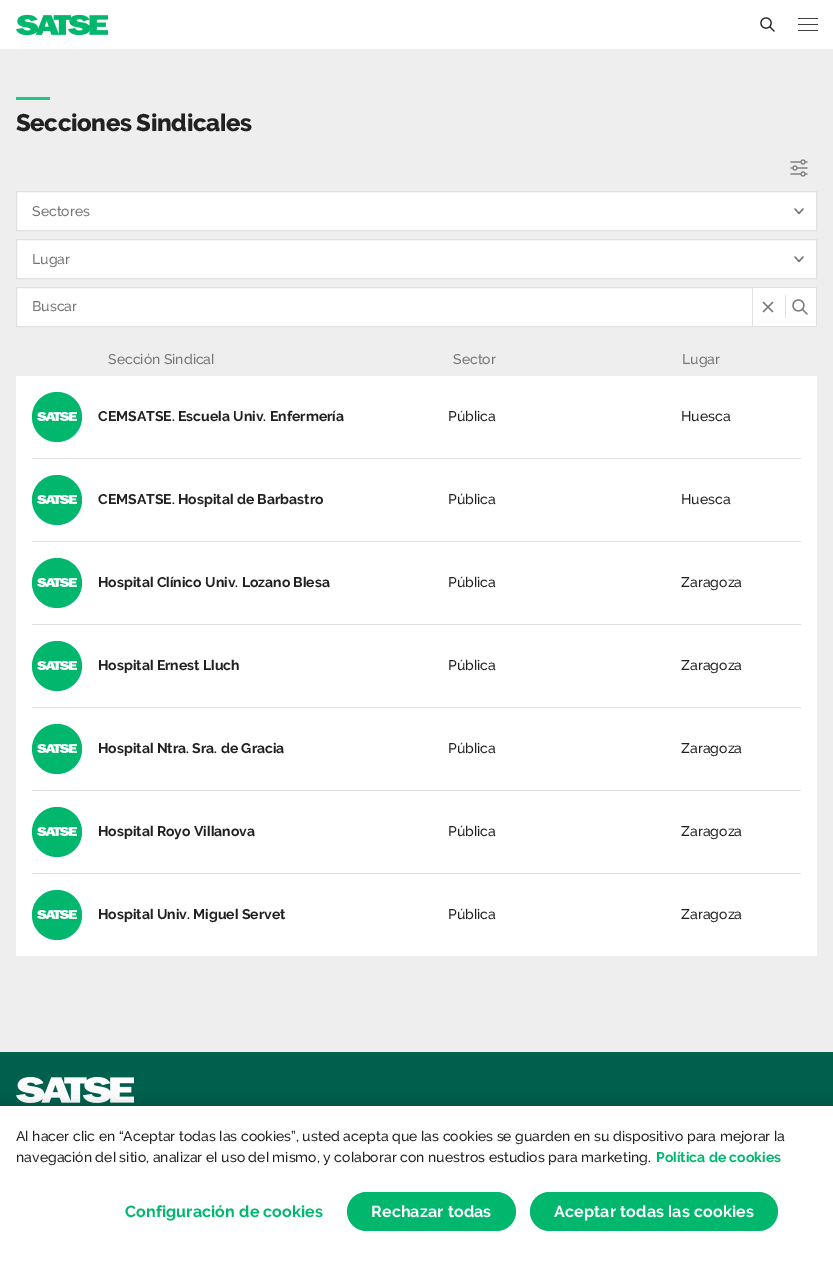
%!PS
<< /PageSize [833 1261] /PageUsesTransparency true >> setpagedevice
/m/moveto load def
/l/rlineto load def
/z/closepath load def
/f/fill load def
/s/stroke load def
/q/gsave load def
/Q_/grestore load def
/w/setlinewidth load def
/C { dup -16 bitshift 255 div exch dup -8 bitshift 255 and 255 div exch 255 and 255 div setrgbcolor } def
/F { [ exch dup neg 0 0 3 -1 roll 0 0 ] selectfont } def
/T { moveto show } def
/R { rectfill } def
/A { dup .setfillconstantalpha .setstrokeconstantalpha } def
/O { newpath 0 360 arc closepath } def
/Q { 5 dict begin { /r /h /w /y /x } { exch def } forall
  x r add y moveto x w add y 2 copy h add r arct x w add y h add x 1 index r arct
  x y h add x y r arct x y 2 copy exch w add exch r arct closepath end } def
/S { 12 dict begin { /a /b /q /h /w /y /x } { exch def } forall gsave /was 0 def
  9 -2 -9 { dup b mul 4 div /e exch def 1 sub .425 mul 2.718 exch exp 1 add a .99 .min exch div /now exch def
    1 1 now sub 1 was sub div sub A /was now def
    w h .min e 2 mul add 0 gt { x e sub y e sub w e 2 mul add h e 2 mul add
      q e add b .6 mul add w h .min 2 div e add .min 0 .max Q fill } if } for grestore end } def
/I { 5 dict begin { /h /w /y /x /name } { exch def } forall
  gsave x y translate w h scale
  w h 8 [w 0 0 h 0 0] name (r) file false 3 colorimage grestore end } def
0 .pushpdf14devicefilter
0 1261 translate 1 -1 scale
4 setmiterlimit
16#FFFFFF C
0 0 833 1261 R
(1.rgb) 16 14 92 22 I
(2.rgb) 760 17 15 15 I
16#424242 C
798 18 20 1 .5 Q f
798 24 20 1 .5 Q f
798 30 20 1 .5 Q f
16#EEEEEE C
0 49 833 1003 R
16#1FC97C C
16 97 34 3 R
/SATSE-ExtraBold 24 F
16#212121 C
16 131 m -.4 0 (Secciones Sindicales) ashow
(3.rgb) 790 159 18 18 I
16#FFFFFF C
17 192 799 38 R
16#757575 C
1.3 w
1 setlinecap
1 setlinejoin
803 209 m -4 4.5 l -4 -4.5 l s
16#E0E0E0 C
1 w
0 setlinecap
0 setlinejoin
16.5 191.5 800 39 rectstroke
/SATSE-Medium 14 F
16#757575 C
(Sectores) 32 216 T
16#FFFFFF C
17 240 799 38 R
16#757575 C
1.3 w
1 setlinecap
1 setlinejoin
803 257 m -4 4.5 l -4 -4.5 l s
16#E0E0E0 C
1 w
0 setlinecap
0 setlinejoin
16.5 239.5 800 39 rectstroke
16#757575 C
(Lugar) 32 264 T
16#E0E0E0 C
752 287 65 1 R
816 287 1 40 R
752 326 65 1 R
16#FFFFFF C
16.5 287.5 m 736 0 l 0 39 l -736 0 l z q f Q_
16#E0E0E0 C
s
16#757575 C
(Buscar) 32 311 T
16#FFFFFF C
753 288 63 38 R
16#757575 C
1.3 w
1 setlinecap
1 setlinejoin
763.5 302.5 m 9 9 l 763.5 311.5 m 9 -9 l z s
16#E0E0E0 C
785 295 1 23 R
(4.rgb) 792 299 16 16 I
16#757575 C
(Sección Sindical) 108 364 T
(Sector) 453 364 T
(Lugar) 682 364 T
16#FFFFFF C
16 376 801 580 R
16#E0E0E0 C
32 458 769 1 R
16#00B76D C
57 417 25 O f
(5.rgb) 37 412 40 9 I
/SATSE-Bold 14 F
16#212121 C
(CEMSATSE. Escuela Univ. Enfermería) 98 421 T
/SATSE-Medium 14 F
(Pública) 448 421 T
(Huesca) 681 421 T
16#E0E0E0 C
32 541 769 1 R
16#00B76D C
57 500 25 O f
(5.rgb) 37 495 40 9 I
/SATSE-Bold 14 F
16#212121 C
(CEMSATSE. Hospital de Barbastro) 98 504 T
/SATSE-Medium 14 F
(Pública) 448 504 T
(Huesca) 681 504 T
16#E0E0E0 C
32 624 769 1 R
16#00B76D C
57 583 25 O f
(5.rgb) 37 578 40 9 I
/SATSE-Bold 14 F
16#212121 C
(Hospital Clínico Univ. Lozano Blesa) 98 587 T
/SATSE-Medium 14 F
(Pública) 448 587 T
(Zaragoza) 681 587 T
16#E0E0E0 C
32 707 769 1 R
16#00B76D C
57 666 25 O f
(5.rgb) 37 661 40 9 I
/SATSE-Bold 14 F
16#212121 C
(Hospital Ernest Lluch) 98 670 T
/SATSE-Medium 14 F
(Pública) 448 670 T
(Zaragoza) 681 670 T
16#E0E0E0 C
32 790 769 1 R
16#00B76D C
57 749 25 O f
(5.rgb) 37 744 40 9 I
/SATSE-Bold 14 F
16#212121 C
(Hospital Ntra. Sra. de Gracia) 98 753 T
/SATSE-Medium 14 F
(Pública) 448 753 T
(Zaragoza) 681 753 T
16#E0E0E0 C
32 873 769 1 R
16#00B76D C
57 832 25 O f
(5.rgb) 37 827 40 9 I
/SATSE-Bold 14 F
16#212121 C
(Hospital Royo Villanova) 98 836 T
/SATSE-Medium 14 F
(Pública) 448 836 T
(Zaragoza) 681 836 T
16#00B76D C
57 915 25 O f
(5.rgb) 37 910 40 9 I
/SATSE-Bold 14 F
16#212121 C
(Hospital Univ. Miguel Servet) 98 919 T
/SATSE-Medium 14 F
(Pública) 448 919 T
(Zaragoza) 681 919 T
16#00604E C
0 1052 833 54 R
(6.rgb) 16 1077 118 26 I
16#000000 C
0 1106 833 155 0 9 .2 S
16#FFFFFF C
0 1106 833 155 R
16#212121 C
(Al hacer clic en “Aceptar todas las cookies”, usted acepta que las cookies se guarden en su dispositivo para mejorar la) 16 1141 T
(navegación del sitio, analizar el uso del mismo, y colaborar con nuestros estudios para marketing.) 16 1162 T
/SATSE-Bold 14 F
16#00B76D C
(Política de cookies) 656 1162 T
/SATSE-Bold 16 F
125 1217 m .15 0 (Configuración de cookies) ashow
347 1192 169 39 19.5 Q f
16#FFFFFF C
371 1217 m .15 0 (Rechazar todas) ashow
16#00B76D C
530 1192 248 39 19.5 Q f
16#FFFFFF C
554 1217 m .15 0 (Aceptar todas las cookies) ashow
.poppdf14devicefilter showpage
